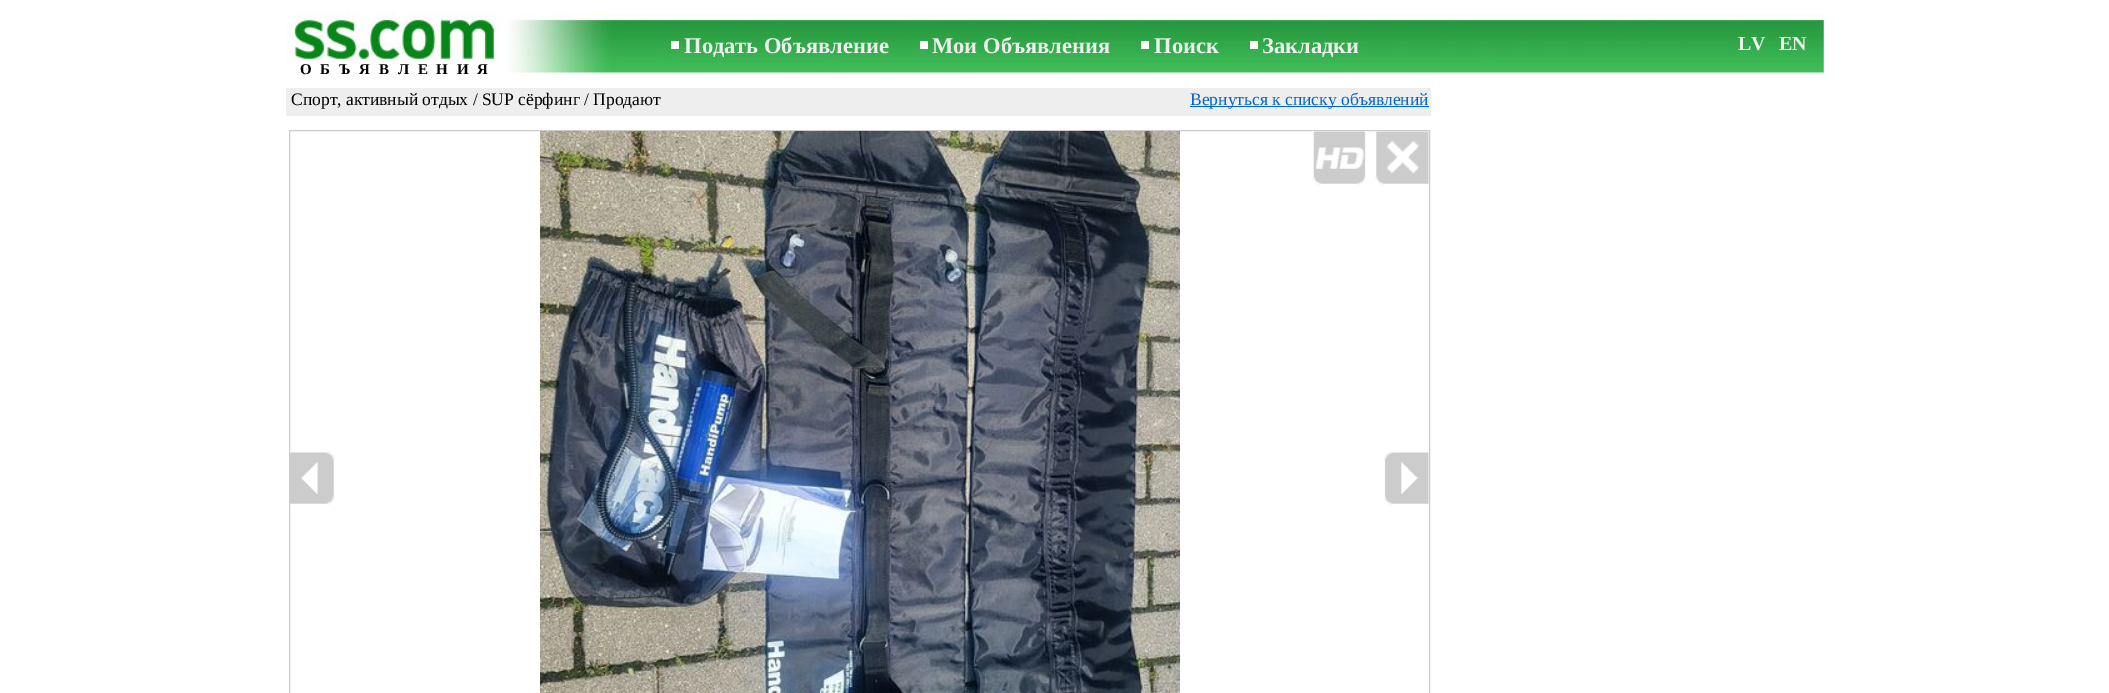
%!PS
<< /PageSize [2109 693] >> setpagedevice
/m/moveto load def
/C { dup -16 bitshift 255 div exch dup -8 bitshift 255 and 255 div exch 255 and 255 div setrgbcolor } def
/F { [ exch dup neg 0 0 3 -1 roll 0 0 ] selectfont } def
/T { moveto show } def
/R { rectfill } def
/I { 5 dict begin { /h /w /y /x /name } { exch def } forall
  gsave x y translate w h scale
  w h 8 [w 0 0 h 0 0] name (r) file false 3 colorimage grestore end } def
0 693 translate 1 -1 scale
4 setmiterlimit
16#FFFFFF C
0 0 2109 693 R
(1.rgb) 286 12 1538 61 I
/LiberationSerif-Bold 22.5 F
16#EEEEEE C
(Подать Объявление) 684 53 T
16#FFFFFF C
671 41 8 8 R
16#EEEEEE C
(Мои Объявления) 932 53 T
16#FFFFFF C
920 41 8 8 R
16#EEEEEE C
(Поиск) 1154 53 T
16#FFFFFF C
1141 41 8 8 R
16#EEEEEE C
(Закладки) 1262 53 T
16#FFFFFF C
1250 41 8 8 R
/LiberationSerif-Bold 20 F
16#EEEEEE C
(LV) 1738 50 T
(EN) 1779 50 T
/LiberationSerif-Bold 15 F
16#000000 C
300 74 m 8.75 0 (ОБЪЯВЛЕНИЯ) ashow
16#EEEEEE C
286 88 1145 28 R
/LiberationSerif-Regular 17.5 F
16#000000 C
(Спорт, активный отдых / SUP сёрфинг / Продают) 291 105 T
16#0066CC C
1190 106 239 1 R
(Вернуться к списку объявлений) 1190 105 T
16#CCCCCC C
289.5 130.5 1140 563 rectstroke
(2.rgb) 540 131 640 562 I
(3.rgb) 1312 131 54 54 I
(4.rgb) 1375 131 54 54 I
(5.rgb) 290 451 45 54 I
(6.rgb) 1384 451 45 54 I
showpage
